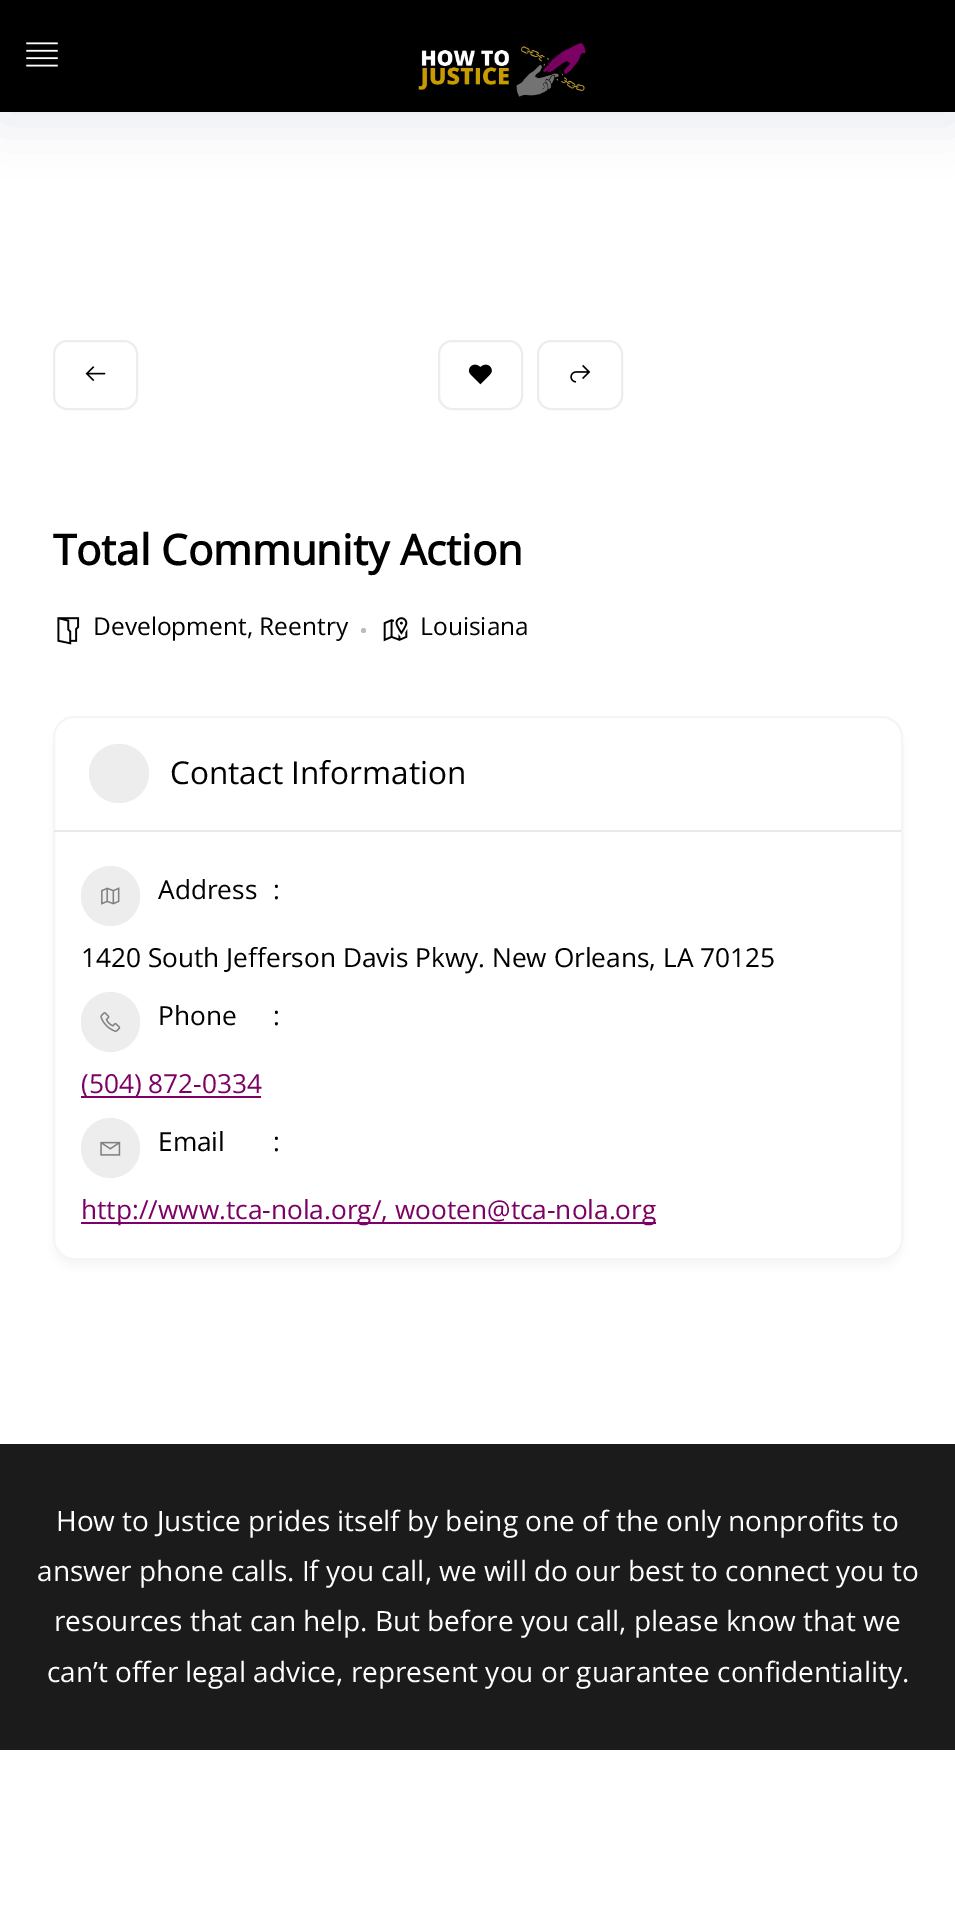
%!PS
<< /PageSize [955 1926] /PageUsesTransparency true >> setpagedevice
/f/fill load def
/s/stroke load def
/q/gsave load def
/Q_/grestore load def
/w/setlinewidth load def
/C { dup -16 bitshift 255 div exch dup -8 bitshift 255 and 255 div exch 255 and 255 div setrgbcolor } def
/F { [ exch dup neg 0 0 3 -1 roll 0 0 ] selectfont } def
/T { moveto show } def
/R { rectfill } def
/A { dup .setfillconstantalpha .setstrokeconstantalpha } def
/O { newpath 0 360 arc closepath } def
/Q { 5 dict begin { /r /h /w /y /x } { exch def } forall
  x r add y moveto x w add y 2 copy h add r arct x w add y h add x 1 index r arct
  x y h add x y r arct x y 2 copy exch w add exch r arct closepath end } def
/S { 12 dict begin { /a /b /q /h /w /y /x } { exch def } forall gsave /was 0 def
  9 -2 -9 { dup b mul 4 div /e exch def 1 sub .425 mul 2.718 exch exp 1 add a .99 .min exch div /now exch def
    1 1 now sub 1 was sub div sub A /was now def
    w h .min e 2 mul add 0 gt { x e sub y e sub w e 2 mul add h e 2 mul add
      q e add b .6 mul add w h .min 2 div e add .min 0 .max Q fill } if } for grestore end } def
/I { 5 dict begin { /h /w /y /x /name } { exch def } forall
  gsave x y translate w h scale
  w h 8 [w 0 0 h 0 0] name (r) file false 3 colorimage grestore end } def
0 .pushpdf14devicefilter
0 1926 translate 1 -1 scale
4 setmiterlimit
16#FFFFFF C
0 0 955 1926 R
16#001654 C
0 9 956 112 0 26 .1 S
16#000000 C
0 0 955 112 R
(1.rgb) 26 42 32 25 I
(2.rgb) 418 43 168 54 I
16#EDEDED C
2 w
54 341 83 68 13 Q s
(3.rgb) 85 366 21 16 I
439 341 83 68 13 Q s
(4.rgb) 468 364 24 21 I
538 341 84 68 13 Q s
(5.rgb) 570 364 21 19 I
/OpenSans-Bold 42 F
16#000000 C
(Total Community Action) 53 565 T
(6.rgb) 57 617 23 28 I
/OpenSans-Regular 24.5 F
(Development, Reentry) 93 635 T
16#BCBCBC C
363.5 630.5 2.5 O f
(7.rgb) 383 617 25 25 I
16#000000 C
(Louisiana) 420 635 T
53 723 850 544 21 5 .04 S
16#FFFFFF C
54 717 848 542 20 Q q f Q_
16#F5F5F5 C
s
16#E9E9E9 C
54 830 847 2 R
16#EDEDED C
89 744 60 59 29.5 Q f
/OpenSans-Regular 31.5 F
16#000000 C
(Contact Information) 170 784 T
16#EDEDED C
81 866 59 60 29.5 Q f
(8.rgb) 101 887 19 18 I
/OpenSans-Regular 26.25 F
16#000000 C
(Address) 158 899 T
(:) 273 899 T
(1420 South Jefferson Davis Pkwy. New Orleans, LA 70125) 81 967 T
16#EDEDED C
81 992 59 60 29.5 Q f
(9.rgb) 100 1012 21 20 I
16#000000 C
(Phone) 158 1025 T
(:) 273 1025 T
16#7D0064 C
81 1096 180 2 R
(\(504\) 872-0334) 81 1093 T
16#EDEDED C
81 1118 59 60 29.5 Q f
(10.rgb) 100 1141 21 15 I
16#000000 C
(Email) 158 1151 T
(:) 273 1151 T
16#7D0064 C
81 1222 575 2 R
(http://www.tca-nola.org/, wooten@tca-nola.org) 81 1219 T
16#1B1B1B C
0 1444 955 306 R
/OpenSans-Regular 28 F
16#FFFFFF C
(How to Justice prides itself by being one of the only nonprofits to) 56 1531 T
(answer phone calls. If you call, we will do our best to connect you to) 37 1581 T
(resources that can help. But before you call, please know that we) 54 1631 T
(can’t offer legal advice, represent you or guarantee confidentiality.) 47 1682 T
.poppdf14devicefilter showpage
